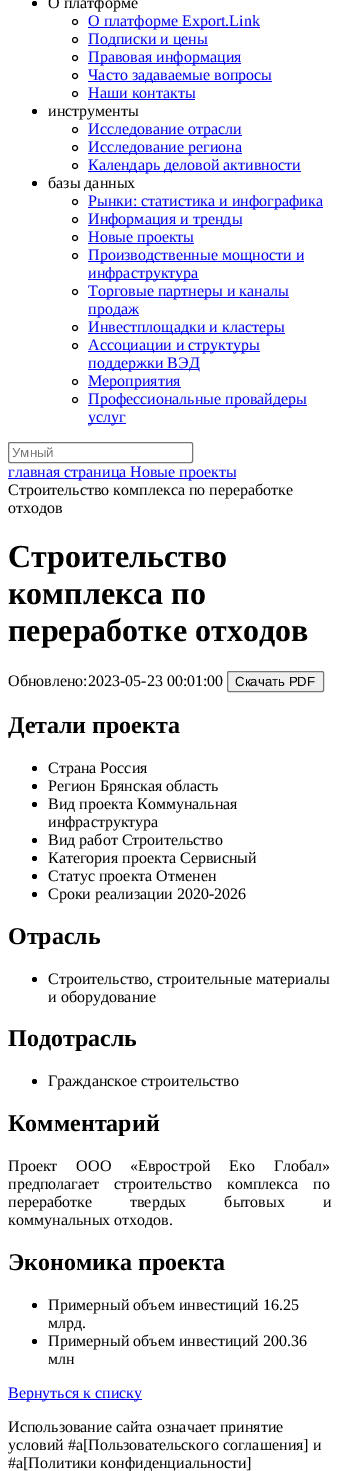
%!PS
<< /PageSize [339 1471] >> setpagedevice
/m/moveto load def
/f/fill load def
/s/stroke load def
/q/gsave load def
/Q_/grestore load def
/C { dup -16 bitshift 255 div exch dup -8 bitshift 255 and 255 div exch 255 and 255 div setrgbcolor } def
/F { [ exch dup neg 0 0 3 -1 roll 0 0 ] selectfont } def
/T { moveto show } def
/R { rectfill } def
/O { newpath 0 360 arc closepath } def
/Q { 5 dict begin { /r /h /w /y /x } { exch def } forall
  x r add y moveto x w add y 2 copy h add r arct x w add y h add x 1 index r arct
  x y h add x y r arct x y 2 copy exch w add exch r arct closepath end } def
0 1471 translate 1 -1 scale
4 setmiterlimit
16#FFFFFF C
0 0 339 1471 R
16#000000 C
34.5 3.5 2.5 O f
/LiberationSerif-Regular 16 F
(О платформе) 48 8 T
75 22 2.5 O s
16#0000EE C
88 27 172 1 R
(О платформе Export.Link) 88 26 T
16#000000 C
75 40 2.5 O s
16#0000EE C
88 45 120 1 R
(Подписки и цены) 88 44 T
16#000000 C
75 58 2.5 O s
16#0000EE C
88 63 153 1 R
(Правовая информация) 88 62 T
16#000000 C
75 76 2.5 O s
16#0000EE C
88 81 184 1 R
(Часто задаваемые вопросы) 88 80 T
16#000000 C
75 94 2.5 O s
16#0000EE C
(Наши контакты) 88 98 T
88 99 107 1 R
16#000000 C
34.5 111.5 2.5 O f
(инструменты) 48 116 T
75 130 2.5 O s
16#0000EE C
88 135 154 1 R
(Исследование отрасли) 88 134 T
16#000000 C
75 148 2.5 O s
16#0000EE C
88 153 154 1 R
(Исследование региона) 88 152 T
16#000000 C
75 166 2.5 O s
16#0000EE C
88 171 213 1 R
(Календарь деловой активности) 88 170 T
16#000000 C
34.5 183.5 2.5 O f
(базы данных) 48 188 T
75 202 2.5 O s
16#0000EE C
88 207 235 1 R
(Рынки: статистика и инфографика) 88 206 T
16#000000 C
75 220 2.5 O s
16#0000EE C
88 225 154 1 R
(Информация и тренды) 88 224 T
16#000000 C
75 238 2.5 O s
16#0000EE C
88 243 106 1 R
(Новые проекты) 88 242 T
16#000000 C
75 256 2.5 O s
16#0000EE C
88 261 216 1 R
(Производственные мощности и) 88 260 T
88 279 111 1 R
(инфраструктура) 88 278 T
16#000000 C
75 292 2.5 O s
16#0000EE C
88 297 201 1 R
(Торговые партнеры и каналы) 88 296 T
88 315 51 1 R
(продаж) 88 314 T
16#000000 C
75 328 2.5 O s
16#0000EE C
88 333 197 1 R
(Инвестплощадки и кластеры) 88 332 T
16#000000 C
75 346 2.5 O s
16#0000EE C
88 351 172 1 R
(Ассоциации и структуры) 88 350 T
88 369 111 1 R
(поддержки ВЭД) 88 368 T
16#000000 C
75 382 2.5 O s
16#0000EE C
88 387 93 1 R
(Мероприятия) 88 386 T
16#000000 C
75 400 2.5 O s
16#0000EE C
88 405 219 1 R
(Профессиональные провайдеры) 88 404 T
88 423 38 1 R
(услуг) 88 422 T
16#767676 C
8.5 442.5 184 20 1.5 Q s
/LiberationSans-Regular 13.25 F
16#757575 C
(Умный) 12 457 T
16#0000EE C
8 478 228 1 R
/LiberationSerif-Regular 16 F
(главная страница Новые проекты) 8 477 T
16#000000 C
(Строительство комплекса по переработке) 8 495 T
(отходов) 8 513 T
/LiberationSerif-Bold 32 F
(Строительство) 8 567 T
(комплекса по) 8 604 T
(переработке отходов) 8 641 T
/LiberationSerif-Regular 16 F
(Обновлено:2023-05-23 00:01:00) 8 686 T
16#EFEFEF C
227.5 671.5 96 20 1.5 Q q f Q_
16#767676 C
s
/LiberationSans-Regular 13.25 F
16#000000 C
(Скачать PDF) 235 686 T
/LiberationSerif-Bold 24 F
(Детали проекта) 8 733 T
34.5 768.5 2.5 O f
/LiberationSerif-Regular 16 F
(Страна Россия) 48 773 T
34.5 786.5 2.5 O f
(Регион Брянская область) 48 791 T
34.5 804.5 2.5 O f
(Вид проекта Коммунальная) 48 809 T
(инфраструктура) 48 827 T
34.5 840.5 2.5 O f
(Вид работ Строительство) 48 845 T
34.5 858.5 2.5 O f
(Категория проекта Сервисный) 48 863 T
34.5 876.5 2.5 O f
(Статус проекта Отменен) 48 881 T
34.5 894.5 2.5 O f
(Сроки реализации 2020-2026) 48 899 T
/LiberationSerif-Bold 24 F
(Отрасль) 8 944 T
34.5 979.5 2.5 O f
/LiberationSerif-Regular 16 F
(Строительство, строительные материалы) 48 984 T
(и оборудование) 48 1002 T
/LiberationSerif-Bold 24 F
(Подотрасль) 8 1046 T
34.5 1081.5 2.5 O f
/LiberationSerif-Regular 16 F
(Гражданское строительство) 48 1086 T
/LiberationSerif-Bold 24 F
(Комментарий) 8 1131 T
/LiberationSerif-Regular 16 F
8 1171 m 15 0 32 (Проект ООО «Еврострой Еко Глобал») widthshow
8 1189 m 11 0 32 (предполагает строительство комплекса по) widthshow
8 1207 m 34 0 32 (переработке твердых бытовых и) widthshow
(коммунальных отходов.) 8 1225 T
/LiberationSerif-Bold 24 F
(Экономика проекта) 8 1270 T
34.5 1305.5 2.5 O f
/LiberationSerif-Regular 16 F
(Примерный объем инвестиций 16.25) 48 1310 T
(млрд.) 48 1328 T
34.5 1341.5 2.5 O f
(Примерный объем инвестиций 200.36) 48 1346 T
(млн) 48 1364 T
16#0000EE C
8 1399 134 1 R
(Вернуться к списку) 8 1398 T
16#000000 C
(Использование сайта означает принятие) 8 1432 T
(условий #a[Пользовательского соглашения] и) 8 1450 T
(#a[Политики конфиденциальности]) 8 1468 T
showpage
